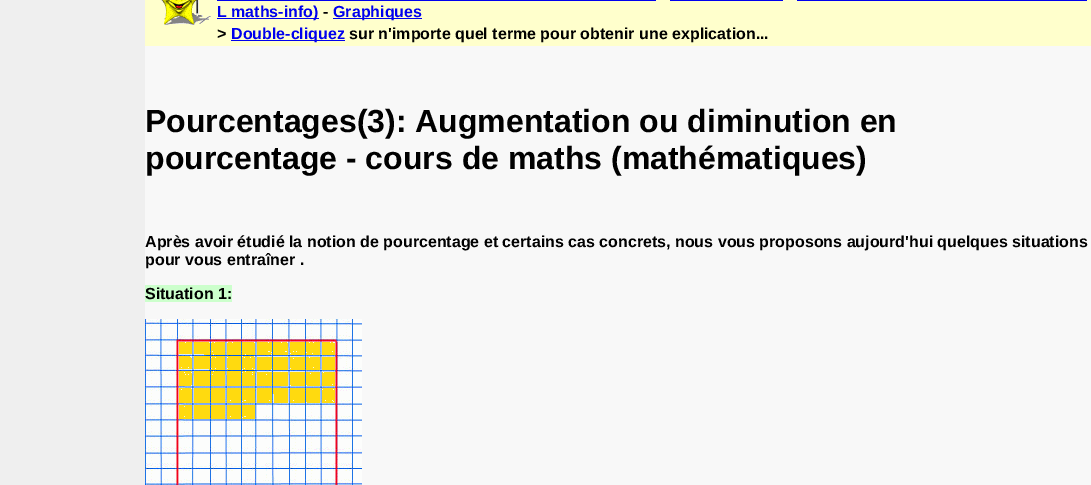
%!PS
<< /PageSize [1091 485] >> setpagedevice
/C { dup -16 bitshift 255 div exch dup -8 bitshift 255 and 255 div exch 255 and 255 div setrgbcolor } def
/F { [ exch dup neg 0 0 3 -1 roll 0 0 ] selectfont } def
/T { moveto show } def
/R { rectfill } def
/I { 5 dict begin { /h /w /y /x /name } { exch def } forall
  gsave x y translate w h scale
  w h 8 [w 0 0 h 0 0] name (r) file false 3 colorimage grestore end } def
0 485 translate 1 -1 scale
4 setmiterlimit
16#EFEFEF C
0 0 1091 485 R
16#F8F8F8 C
145 46 946 439 R
16#FFFFCC C
145 0 946 46 R
(1.rgb) 161 0 50 25 I
16#0000EE C
217 18 102 1 R
/LiberationSans-Bold 16 F
(L maths-info\)) 217 17 T
16#000000 C
(-) 323 17 T
16#0000EE C
217 0 439 1 R
333 18 89 1 R
(Graphiques) 333 17 T
670 0 113 1 R
797 0 290 1 R
16#000000 C
(>) 217 39 T
16#0000EE C
231 40 114 1 R
(Double-cliquez) 231 39 T
16#000000 C
(sur n'importe quel terme pour obtenir une explication...) 349 39 T
/LiberationSans-Bold 32 F
(Pourcentages\(3\): Augmentation ou diminution en) 145 132 T
(pourcentage - cours de maths \(mathématiques\)) 145 169 T
/LiberationSans-Bold 16 F
(Après avoir étudié la notion de pourcentage et certains cas concrets, nous vous proposons aujourd'hui quelques situations) 145 247 T
(pour vous entraîner .) 145 265 T
16#CCFFCC C
145 285 87 17 R
16#000000 C
(Situation 1:) 145 299 T
(2.rgb) 145 319 217 166 I
showpage
